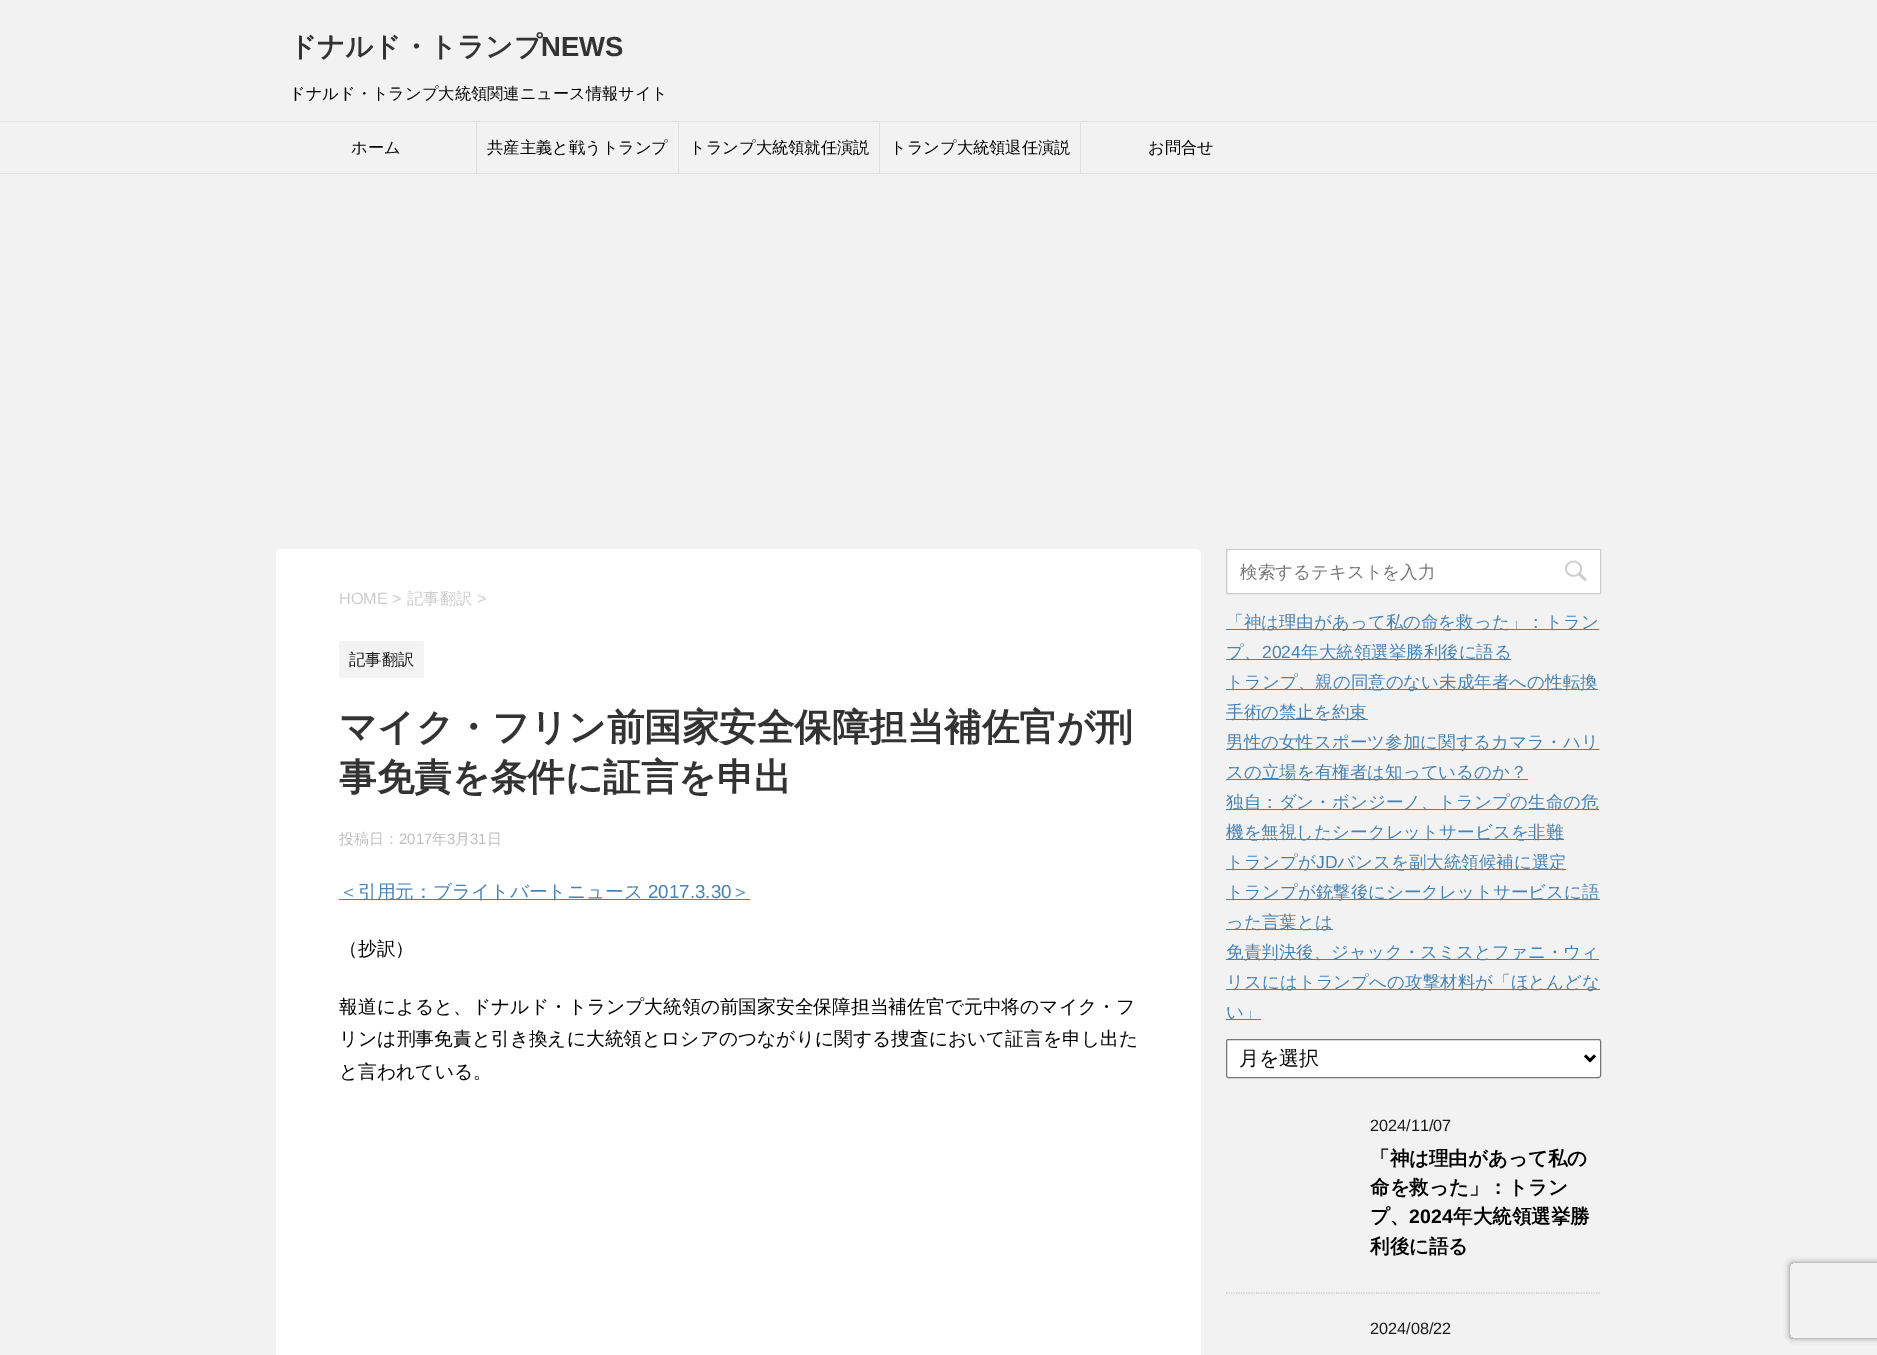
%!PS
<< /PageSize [1877 1355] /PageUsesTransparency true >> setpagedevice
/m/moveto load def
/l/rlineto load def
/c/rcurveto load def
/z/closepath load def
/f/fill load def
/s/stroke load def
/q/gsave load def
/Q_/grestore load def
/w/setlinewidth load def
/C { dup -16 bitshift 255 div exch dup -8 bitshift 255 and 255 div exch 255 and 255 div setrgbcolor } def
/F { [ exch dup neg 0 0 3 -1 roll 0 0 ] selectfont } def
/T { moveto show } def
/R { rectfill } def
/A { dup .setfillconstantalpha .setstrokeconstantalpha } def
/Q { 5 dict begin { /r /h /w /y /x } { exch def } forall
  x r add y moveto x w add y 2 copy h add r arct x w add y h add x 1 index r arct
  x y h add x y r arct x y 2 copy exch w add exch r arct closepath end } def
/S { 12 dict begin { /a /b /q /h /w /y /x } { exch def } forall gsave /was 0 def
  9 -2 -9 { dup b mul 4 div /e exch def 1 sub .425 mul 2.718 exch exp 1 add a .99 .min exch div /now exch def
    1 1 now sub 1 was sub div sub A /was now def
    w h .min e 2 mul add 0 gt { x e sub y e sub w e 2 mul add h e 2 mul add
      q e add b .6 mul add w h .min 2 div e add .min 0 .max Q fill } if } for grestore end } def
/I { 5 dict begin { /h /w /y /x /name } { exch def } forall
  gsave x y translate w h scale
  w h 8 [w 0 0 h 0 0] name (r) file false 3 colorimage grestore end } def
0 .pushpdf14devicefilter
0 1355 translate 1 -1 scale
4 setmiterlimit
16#F2F2F2 C
0 0 1877 1355 R
/WenQuanYiZenHei-Bold 27.5 F
16#333333 C
(ドナルド・トランプ) 289 56 T
/LiberationSans-Bold 27.5 F
(NEWS) 541 56 T
/WenQuanYiZenHei-Medium 16.25 F
16#000000 C
(ドナルド・トランプ大統領関連ニュース情報サイト) 289 99 T
16#E0DEDE C
0 121 1877 1 R
0 173 1877 1 R
476 123 1 50 R
16#000000 C
(ホーム) 351 153 T
16#E0DEDE C
678 123 1 50 R
16#000000 C
(共産主義と戦うトランプ) 487 153 T
16#E0DEDE C
879 123 1 50 R
16#000000 C
(トランプ大統領就任演説) 689 153 T
16#E0DEDE C
1080 123 1 50 R
16#000000 C
(トランプ大統領退任演説) 890 153 T
(お問合せ) 1148 153 T
16#FFFFFF C
276 549 925 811 5 Q f
/LiberationSans-Regular 16.25 F
16#CCCCCC C
(HOME >) 339 604 T
/WenQuanYiZenHei-Medium 16.25 F
(記事翻訳) 407 604 T
/LiberationSans-Regular 16.25 F
(>) 477 604 T
16#F3F3F3 C
339 641 85 37 2.5 Q f
/WenQuanYiZenHei-Medium 16.25 F
16#1A1A1A C
(記事翻訳) 349 665 T
/WenQuanYiZenHei-Bold 37.5 F
16#333333 C
(マイク・フリン前国家安全保障担当補佐官が刑) 339 740 T
(事免責を条件に証言を申出) 339 790 T
/WenQuanYiZenHei-Medium 15 F
16#BDBDBD C
(投稿日：) 339 844 T
/LiberationSans-Regular 15 F
(2017) 399 844 T
/WenQuanYiZenHei-Medium 15 F
(年) 432 844 T
/LiberationSans-Regular 15 F
(3) 447 844 T
/WenQuanYiZenHei-Medium 15 F
(月) 455 844 T
/LiberationSans-Regular 15 F
(31) 470 844 T
/WenQuanYiZenHei-Medium 15 F
(日) 487 844 T
16#4682B4 C
339 899 411 1 R
/WenQuanYiZenHei-Medium 18.75 F
(＜引用元：ブライトバートニュース) 339 898 T
/LiberationSans-Regular 18.75 F
(2017.3.30) 648 898 T
/WenQuanYiZenHei-Medium 18.75 F
(＞) 731 898 T
16#000000 C
(（抄訳）) 339 955 T
(報道によると、ドナルド・トランプ大統領の前国家安全保障担当補佐官で元中将のマイク・フ) 339 1013 T
(リンは刑事免責と引き換えに大統領とロシアのつながりに関する捜査において証言を申し出た) 339 1045 T
(と言われている。) 339 1078 T
16#CCCCCC C
1226.5 549.5 374 44 rectstroke
16#FFFFFF C
1228 550 372 43 R
/WenQuanYiZenHei-Medium 17.5 F
16#757575 C
(検索するテキストを入力) 1240 578 T
(1.rgb) 1565 560 22 22 I
16#4682B4 C
1226 629 373 1 R
(「神は理由があって私の命を救った」：トラン) 1226 628 T
1226 659 285 1 R
(プ、) 1226 658 T
/LiberationSans-Regular 17.5 F
(2024) 1262 658 T
/WenQuanYiZenHei-Medium 17.5 F
(年大統領選挙勝利後に語る) 1301 658 T
1226 689 372 1 R
(トランプ、親の同意のない未成年者への性転換) 1226 688 T
1226 719 142 1 R
(手術の禁止を約束) 1226 718 T
1226 749 373 1 R
(男性の女性スポーツ参加に関するカマラ・ハリ) 1226 748 T
1226 779 302 1 R
(スの立場を有権者は知っているのか？) 1226 778 T
1226 809 373 1 R
(独自：ダン・ボンジーノ、トランプの生命の危) 1226 808 T
1226 839 338 1 R
(機を無視したシークレットサービスを非難) 1226 838 T
1226 869 340 1 R
(トランプが) 1226 868 T
/LiberationSans-Regular 17.5 F
(JD) 1316 868 T
/WenQuanYiZenHei-Medium 17.5 F
(バンスを副大統領候補に選定) 1337 868 T
1226 899 374 1 R
(トランプが銃撃後にシークレットサービスに語) 1226 898 T
1226 929 107 1 R
(った言葉とは) 1226 928 T
1226 959 373 1 R
(免責判決後、ジャック・スミスとファニ・ウィ) 1226 958 T
1226 989 374 1 R
(リスにはトランプへの攻撃材料が「ほとんどな) 1226 988 T
1226 1019 35 1 R
(い」) 1226 1018 T
16#FFFFFF C
1226.5 1039.5 374 38 2 Q q f Q_
16#767676 C
s
16#000000 C
2.5 w
1585 1055.5 m 5 5 l 5 -5 l s
/WenQuanYiZenHei-Medium 20 F
(月を選択) 1239 1065 T
16#CCCCCC C
1.2 w
[1.25 1.25] 0 setdash
1226 1293 m 375 0 l s
/LiberationSans-Regular 16.25 F
16#1A1A1A C
(2024/11/07) 1370 1131 T
/WenQuanYiZenHei-Bold 19.5 F
16#000000 C
(「神は理由があって私の) 1370 1165 T
(命を救った」：トラン) 1370 1194 T
(プ、) 1370 1223 T
/LiberationSans-Bold 19.5 F
(2024) 1409 1223 T
/WenQuanYiZenHei-Bold 19.5 F
(年大統領選挙勝) 1453 1223 T
(利後に語る) 1370 1253 T
/LiberationSans-Regular 16.25 F
16#1A1A1A C
(2024/08/22) 1370 1334 T
q
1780 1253 m 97 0 l 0 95 l -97 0 l z 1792.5 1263 m 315 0 l 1.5 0 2.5 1 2.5 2.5 c 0 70 l 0 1.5 -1 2.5 -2.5 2.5 c -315 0 l -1.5 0 -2.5 -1 -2.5 -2.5 c 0 -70 l 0 -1.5 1 -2.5 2.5 -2.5 c z eoclip newpath
16#808080 C
1790 1263 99 75 2.5 3 1 S
Q_
.poppdf14devicefilter showpage
